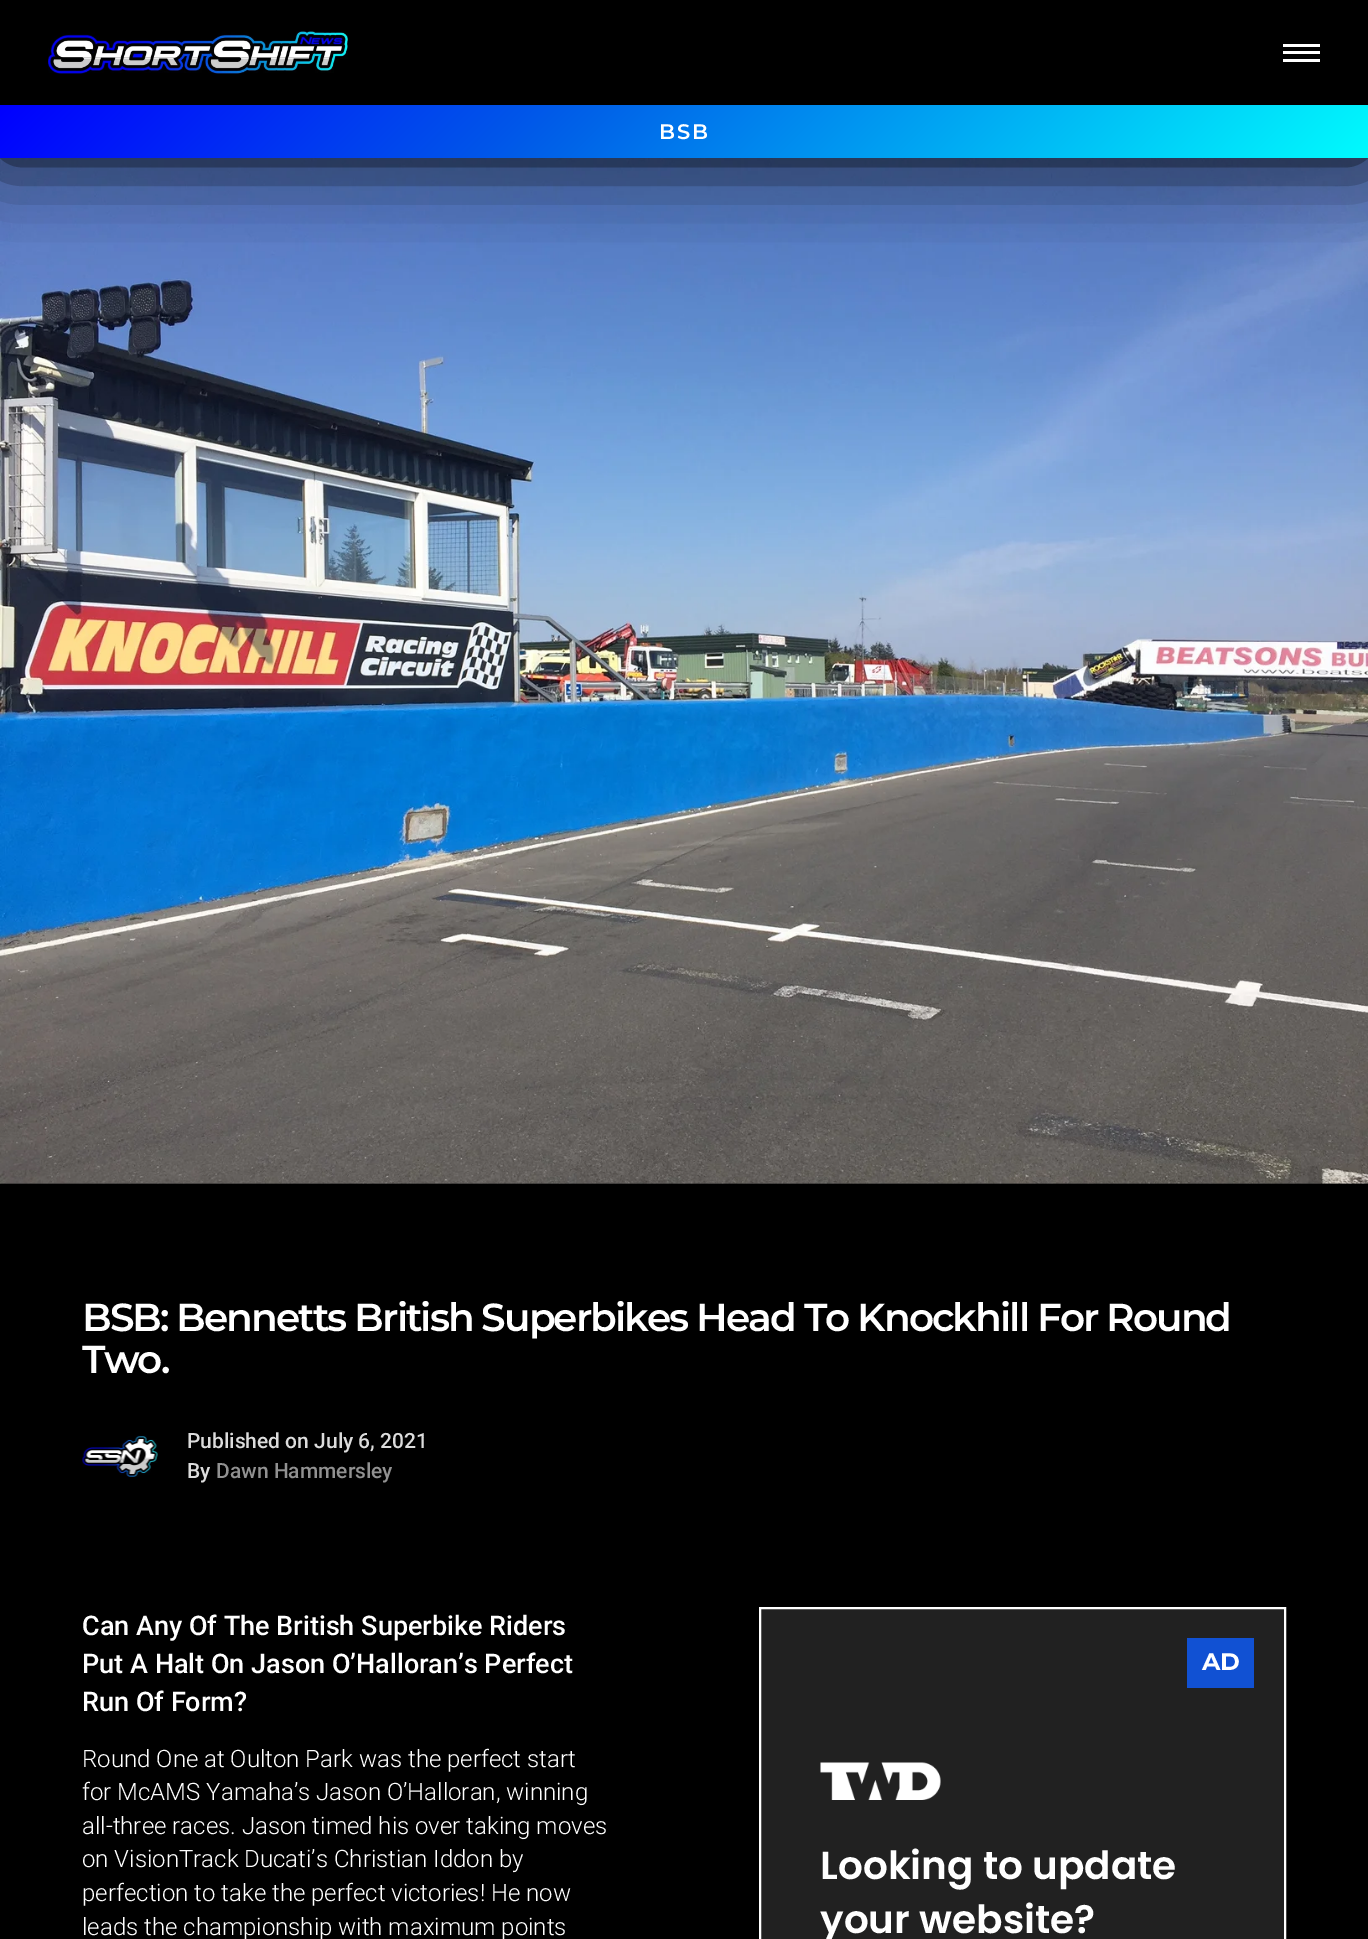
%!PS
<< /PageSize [1368 1939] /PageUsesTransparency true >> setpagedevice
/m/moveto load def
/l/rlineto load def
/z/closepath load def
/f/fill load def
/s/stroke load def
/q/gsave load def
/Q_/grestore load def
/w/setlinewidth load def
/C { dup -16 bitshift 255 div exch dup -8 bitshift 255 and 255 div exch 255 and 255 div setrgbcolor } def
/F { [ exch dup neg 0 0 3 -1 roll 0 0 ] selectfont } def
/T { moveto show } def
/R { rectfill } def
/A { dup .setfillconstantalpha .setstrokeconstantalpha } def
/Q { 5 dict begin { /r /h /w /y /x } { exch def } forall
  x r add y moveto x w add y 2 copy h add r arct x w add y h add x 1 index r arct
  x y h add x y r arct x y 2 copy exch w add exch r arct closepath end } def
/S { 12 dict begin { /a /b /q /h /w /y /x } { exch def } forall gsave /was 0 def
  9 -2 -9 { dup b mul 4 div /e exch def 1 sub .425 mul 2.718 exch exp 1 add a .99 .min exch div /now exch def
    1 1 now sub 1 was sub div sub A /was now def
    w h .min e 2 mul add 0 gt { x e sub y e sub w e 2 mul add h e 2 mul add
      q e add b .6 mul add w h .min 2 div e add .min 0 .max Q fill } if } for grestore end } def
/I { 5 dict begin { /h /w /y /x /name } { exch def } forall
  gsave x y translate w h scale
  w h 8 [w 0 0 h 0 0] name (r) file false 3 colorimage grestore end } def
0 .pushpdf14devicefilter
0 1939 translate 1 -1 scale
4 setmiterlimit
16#212121 C
0 0 1368 1939 R
(2.rgb) 0 158 1368 1026 I
16#000000 C
0 105 1368 53 0 37.5 1 S
0 0 1368 105 R
(1.rgb) 48 31 300 43 I
16#FFFFFF C
1283 44 37 3 R
1283 51 37 3 R
1283 59 37 3 R
q 0 105 m 1368 0 l 0 53 l -1368 0 l z clip newpath
<< /ShadingType 2 /ColorSpace /DeviceRGB /Coords [329 -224 1039 486] /Extend [true true] /Function << /FunctionType 3 /Domain [0 1] /Functions [<< /FunctionType 2 /Domain [0 1] /C0 [0 0 1] /C1 [0 .361 .91] /N 1 >> << /FunctionType 2 /Domain [0 1] /C0 [0 .361 .91] /C1 [0 .984 .996] /N 1 >>] /Bounds [.4] /Encode [0 1 0 1] >> >> shfill Q_
/Montserrat-SemiBold 21 F
659 139 m 2 0 (BSB) ashow
16#000000 C
0 1184 1368 755 R
/Montserrat-SemiBold 39 F
16#FFFFFF C
82 1331 m -1.95 0 (BSB: Bennetts British Superbikes Head To Knockhill For Round) ashow
82 1373 m -1.95 0 (Two.) ashow
(3.rgb) 82 1435 76 42 I
/Roboto-Medium 21 F
16#DCDCDC C
(Published on July 6, 2021) 187 1448 T
(By) 187 1478 T
16#919191 C
(Dawn Hammersley) 216 1478 T
/Roboto-Medium 27 F
16#FFFFFF C
(Can Any Of The British Superbike Riders) 82 1635 T
(Put A Halt On Jason O’Halloran’s Perfect) 82 1673 T
(Run Of Form?) 82 1711 T
/Roboto-Light 24 F
(Round One at Oulton Park was the perfect start) 82 1767 T
(for McAMS Yamaha’s Jason O’Halloran, winning) 82 1800 T
(all-three races. Jason timed his over taking moves) 82 1834 T
(on VisionTrack Ducati’s Christian Iddon by) 82 1867 T
(perfection to take the perfect victories! He now) 82 1901 T
(leads the championship with maximum points) 82 1935 T
16#212121 C
760 1608 m 525 0 l 0 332 l -525 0 l z q f Q_
16#FFFFFF C
2 w
s
16#1151D3 C
1187 1638 67 50 R
/Montserrat-Bold 24 F
16#FFFFFF C
(AD) 1202 1670 T
(4.rgb) 820 1762 121 38 I
/Poppins-SemiBold 39 F
(Looking to update) 820 1879 T
(your website?) 820 1933 T
.poppdf14devicefilter showpage
